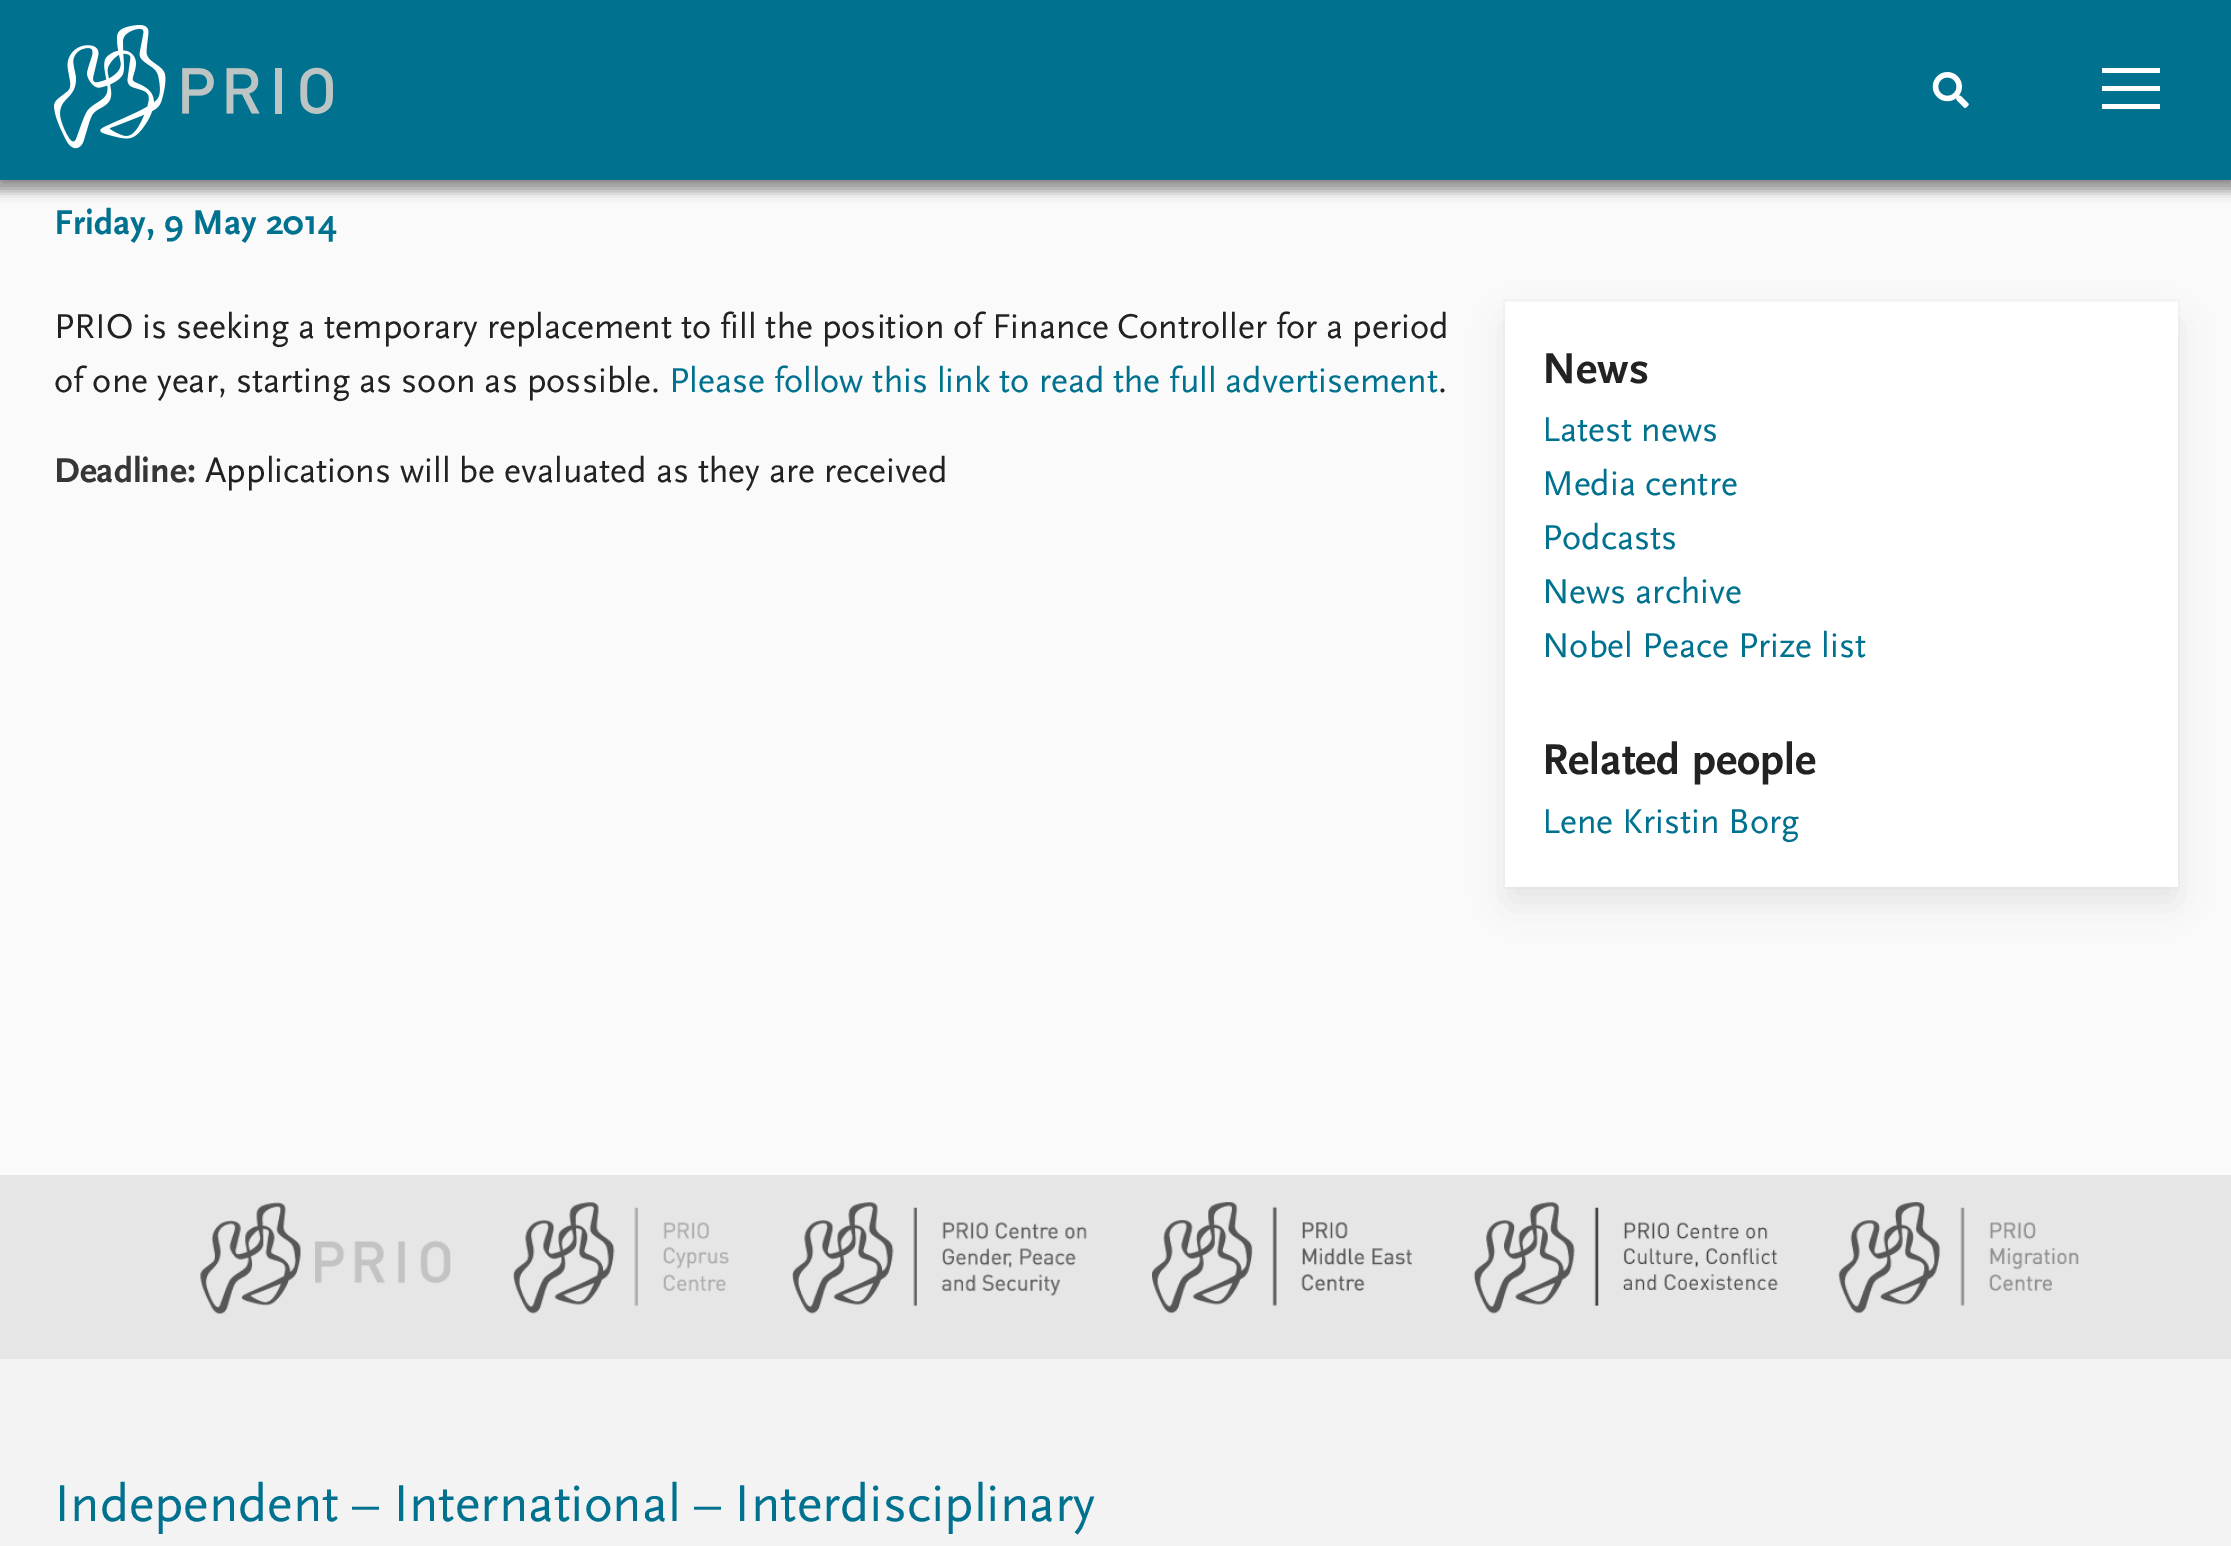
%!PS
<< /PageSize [2231 1546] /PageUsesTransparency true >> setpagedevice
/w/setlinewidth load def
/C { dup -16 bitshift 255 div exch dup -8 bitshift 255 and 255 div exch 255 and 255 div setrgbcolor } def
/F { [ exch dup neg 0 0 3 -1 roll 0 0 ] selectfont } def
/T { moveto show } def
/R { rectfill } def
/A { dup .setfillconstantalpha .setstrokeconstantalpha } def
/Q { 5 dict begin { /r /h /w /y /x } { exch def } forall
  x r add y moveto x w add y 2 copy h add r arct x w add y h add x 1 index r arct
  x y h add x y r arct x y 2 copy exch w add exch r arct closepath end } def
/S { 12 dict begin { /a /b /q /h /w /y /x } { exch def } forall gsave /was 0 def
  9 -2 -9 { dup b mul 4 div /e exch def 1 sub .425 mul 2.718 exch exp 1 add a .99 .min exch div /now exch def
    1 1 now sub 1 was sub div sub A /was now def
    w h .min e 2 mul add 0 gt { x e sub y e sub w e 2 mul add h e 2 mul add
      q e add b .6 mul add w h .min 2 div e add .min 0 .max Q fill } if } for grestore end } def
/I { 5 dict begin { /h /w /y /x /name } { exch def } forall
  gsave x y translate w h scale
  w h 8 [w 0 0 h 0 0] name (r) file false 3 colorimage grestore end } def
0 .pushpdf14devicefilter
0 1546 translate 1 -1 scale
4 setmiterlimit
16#FAFAFA C
0 0 2231 1546 R
16#E7E7E7 C
2 w
-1 -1 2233 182 rectstroke
16#323232 C
-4 5 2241 186 0 5.5 .5 S
16#00718F C
0 0 2231 180 R
(1.rgb) 54 25 279 124 I
(2.rgb) 1932 72 37 36 I
16#FFFFFF C
2102 68 58 5 R
2102 86 58 5 R
2102 104 58 5 R
/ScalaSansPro-Bold 36 F
16#00718F C
(Friday, 9 May 2014) 54 234 T
/ScalaSansPro-Regular 36 F
16#222222 C
(PRIO is seeking a temporary replacement to fill the position of Finance Controller for a period) 54 338 T
(of one year, starting as soon as possible.) 54 392 T
16#00718F C
(Please follow this link to read the full advertisement) 669 392 T
16#222222 C
(.) 1438 392 T
/ScalaSansPro-Bold 36 F
16#363636 C
(Deadline:) 54 482 T
/ScalaSansPro-Regular 36 F
16#222222 C
(Applications will be evaluated as they are received) 205 482 T
16#F5F5F5 C
1504 300 675 588 rectstroke
16#0A0A0A C
1510 324 664 576 0 18 .1 S
16#FFFFFF C
1505 302 673 585 R
/ScalaSansPro-Bold 45 F
16#222222 C
(News) 1542 383 T
/ScalaSansPro-Regular 36 F
16#00718F C
(Latest news) 1542 441 T
(Media centre) 1542 495 T
(Podcasts) 1542 549 T
(News archive) 1542 603 T
(Nobel Peace Prize list) 1542 657 T
/ScalaSansPro-Bold 45 F
16#222222 C
(Related people) 1542 774 T
/ScalaSansPro-Regular 36 F
16#00718F C
(Lene Kristin Borg) 1542 833 T
16#E6E6E6 C
0 1175 2231 184 R
(3.rgb) 200 1202 251 112 I
(4.rgb) 513 1202 216 112 I
(5.rgb) 792 1202 295 112 I
(6.rgb) 1152 1202 260 112 I
(7.rgb) 1473 1202 305 112 I
(8.rgb) 1838 1202 241 112 I
16#F3F3F3 C
0 1359 2231 187 R
/ScalaSansPro-Regular 54 F
16#00718F C
(Independent – International – Interdisciplinary) 54 1521 T
.poppdf14devicefilter showpage
